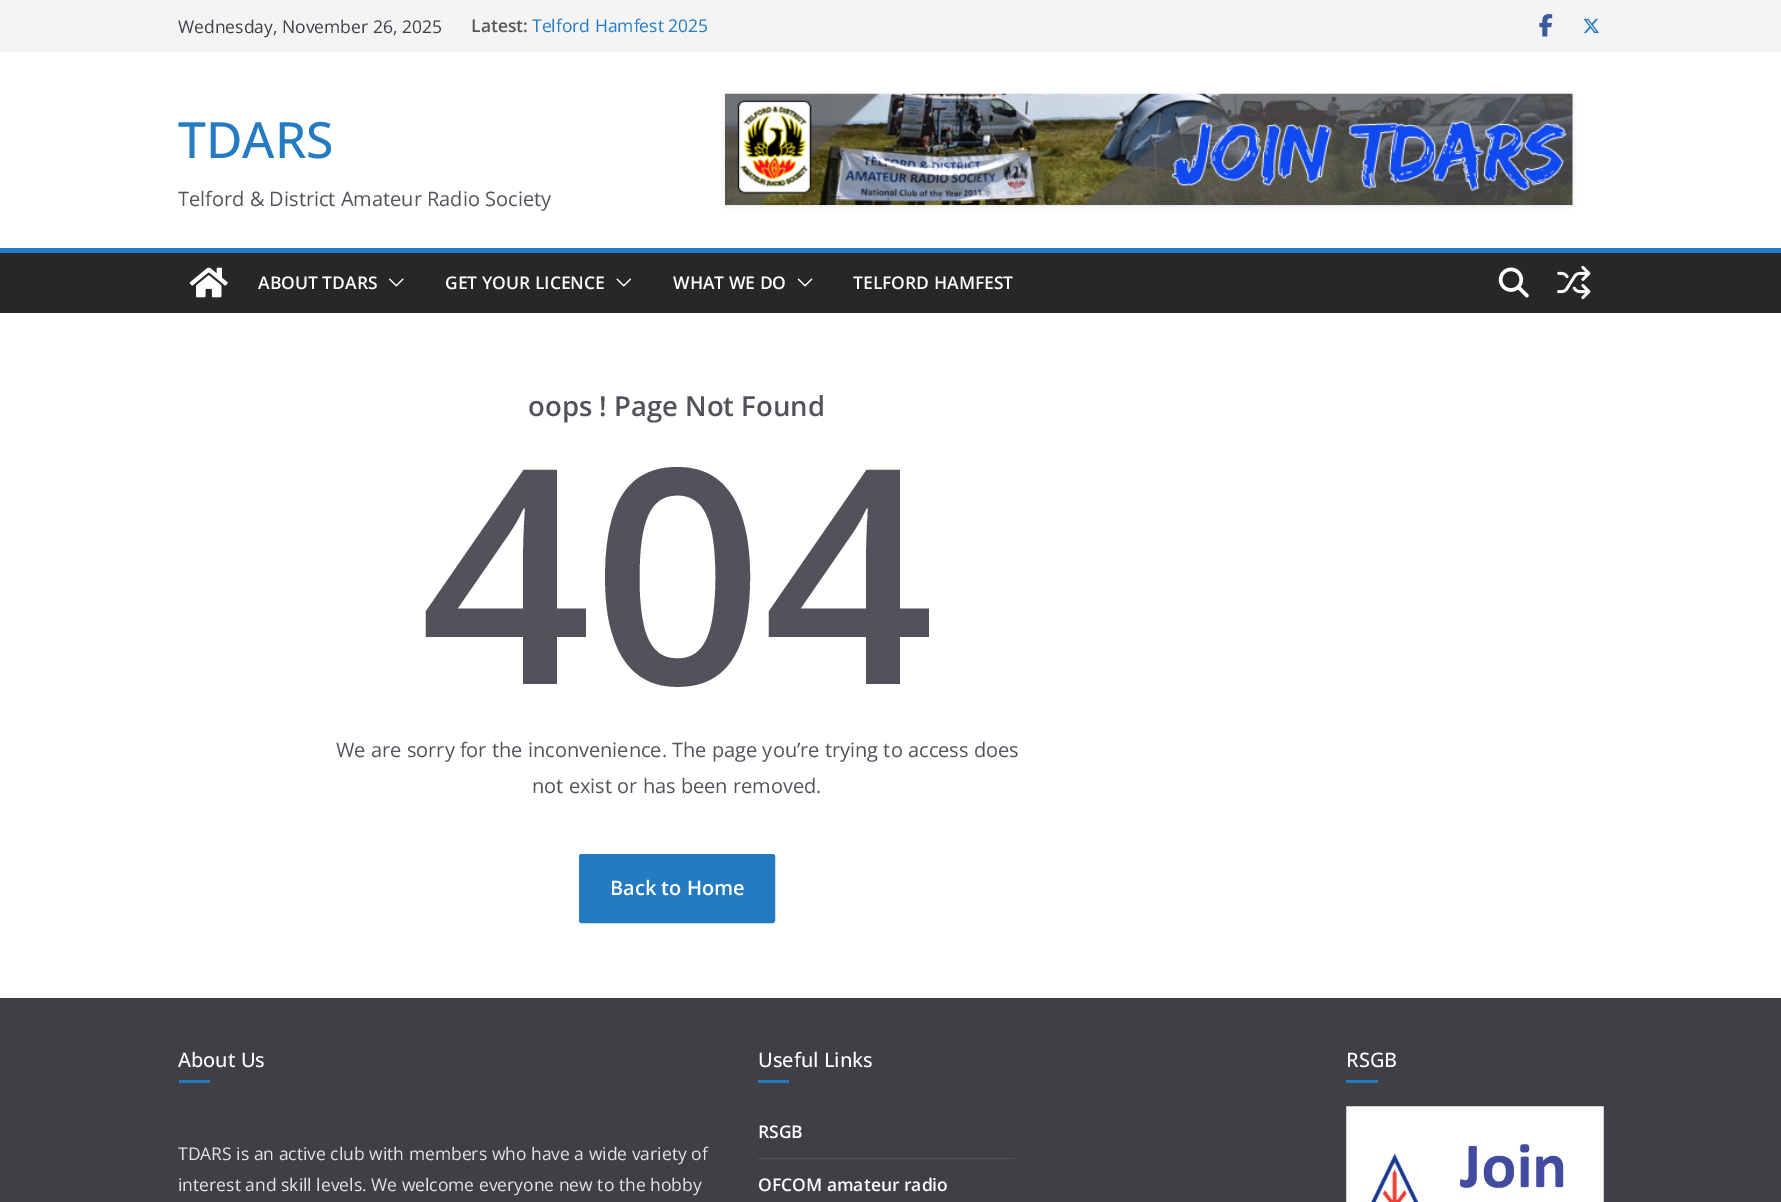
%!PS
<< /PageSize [1781 1202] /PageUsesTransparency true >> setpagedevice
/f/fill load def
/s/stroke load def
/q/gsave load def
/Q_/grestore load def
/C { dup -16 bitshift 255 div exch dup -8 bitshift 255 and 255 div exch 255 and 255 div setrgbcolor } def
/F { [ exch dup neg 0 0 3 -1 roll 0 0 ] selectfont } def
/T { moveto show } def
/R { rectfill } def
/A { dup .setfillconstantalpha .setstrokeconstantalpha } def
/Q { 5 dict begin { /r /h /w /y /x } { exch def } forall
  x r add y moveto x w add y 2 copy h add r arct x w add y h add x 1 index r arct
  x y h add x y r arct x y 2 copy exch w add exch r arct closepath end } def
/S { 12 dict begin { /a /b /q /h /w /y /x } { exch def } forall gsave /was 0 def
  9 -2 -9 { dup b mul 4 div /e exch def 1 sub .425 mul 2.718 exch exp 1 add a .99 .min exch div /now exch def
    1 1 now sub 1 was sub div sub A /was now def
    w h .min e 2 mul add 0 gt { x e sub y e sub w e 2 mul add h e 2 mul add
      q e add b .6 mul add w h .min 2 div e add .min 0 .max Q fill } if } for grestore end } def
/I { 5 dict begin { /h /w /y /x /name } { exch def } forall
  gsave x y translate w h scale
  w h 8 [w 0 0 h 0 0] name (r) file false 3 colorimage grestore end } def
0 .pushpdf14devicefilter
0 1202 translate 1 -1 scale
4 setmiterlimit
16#FFFFFF C
0 0 1781 1202 R
16#000000 C
0 0 1781 51 0 1 .1 S
16#F4F4F5 C
0 0 1781 51 R
/OpenSans-Regular 17.5 F
16#3F3F46 C
(Wednesday, November 26, 2025) 178 33 T
/OpenSans-SemiBold 17.5 F
16#555555 C
(Latest:) 471 32 T
/OpenSans-Regular 17.5 F
16#257BC1 C
(Telford Hamfest 2025) 532 32 T
(1.rgb) 1539 14 14 23 I
(2.rgb) 1583 18 16 16 I
/OpenSans-Medium 50 F
(TDARS) 178 158 T
/OpenSans-Regular 20 F
16#52525B C
(Telford & District Amateur Radio Society) 178 206 T
16#000000 C
725 95 848 111 0 2 .1 S
(3.rgb) 725 93 848 112 I
16#27272A C
0 253 1781 60 R
16#257BC1 C
0 248 1781 5 R
(4.rgb) 189 267 39 31 I
/OpenSans-SemiBold 17.5 F
16#FFFFFF C
(ABOUT TDARS) 258 289 T
(5.rgb) 389 278 15 9 I
(GET YOUR LICENCE) 445 289 T
(6.rgb) 616 278 15 9 I
(WHAT WE DO) 673 289 T
(7.rgb) 797 278 16 9 I
(TELFORD HAMFEST) 853 289 T
(8.rgb) 1498 267 31 31 I
(9.rgb) 1557 265 34 35 I
/OpenSans-SemiBold 27.5 F
16#52525B C
(oops ! Page Not Found) 528 416 T
/OpenSans-SemiBold 300 F
(404) 420 684 T
/OpenSans-Regular 20 F
(We are sorry for the inconvenience. The page you’re trying to access does) 336 757 T
(not exist or has been removed.) 532 793 T
16#257BC1 C
579.5 854.5 195 68 2 Q q f Q_
s
/OpenSans-SemiBold 20 F
16#FFFFFF C
(Back to Home) 610 895 T
16#3F3F46 C
0 998 1781 204 R
/OpenSans-Medium 20 F
16#FFFFFF C
(About Us) 178 1067 T
16#257BC1 C
179 1080 31 3 R
/OpenSans-Regular 17.5 F
16#E4E4E7 C
(TDARS is an active club with members who have a wide variety of) 178 1160 T
(interest and skill levels. We welcome everyone new to the hobby) 178 1191 T
/OpenSans-Medium 20 F
16#FFFFFF C
(Useful Links) 758 1067 T
16#257BC1 C
758 1080 31 3 R
16#52525B C
758 1158 257 1 R
/OpenSans-SemiBold 17.5 F
16#FFFFFF C
(RSGB) 758 1138 T
(OFCOM amateur radio) 758 1191 T
/OpenSans-Medium 20 F
(RSGB) 1346 1067 T
16#257BC1 C
1346 1080 32 3 R
(10.rgb) 1346 1106 258 96 I
.poppdf14devicefilter showpage
